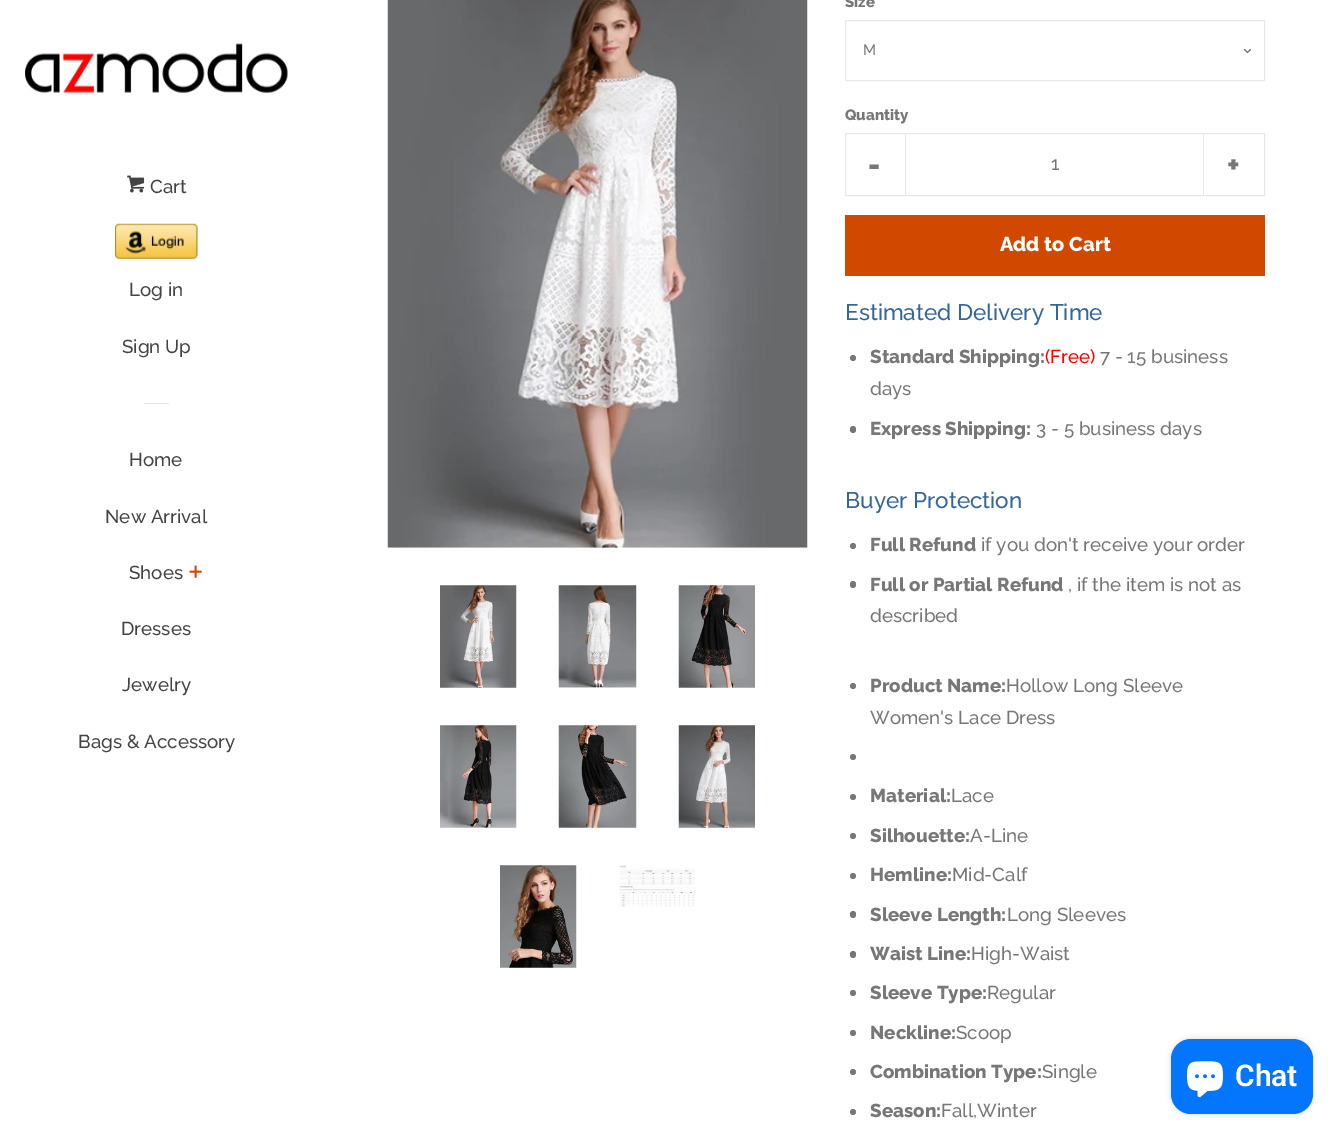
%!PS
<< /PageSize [1339 1139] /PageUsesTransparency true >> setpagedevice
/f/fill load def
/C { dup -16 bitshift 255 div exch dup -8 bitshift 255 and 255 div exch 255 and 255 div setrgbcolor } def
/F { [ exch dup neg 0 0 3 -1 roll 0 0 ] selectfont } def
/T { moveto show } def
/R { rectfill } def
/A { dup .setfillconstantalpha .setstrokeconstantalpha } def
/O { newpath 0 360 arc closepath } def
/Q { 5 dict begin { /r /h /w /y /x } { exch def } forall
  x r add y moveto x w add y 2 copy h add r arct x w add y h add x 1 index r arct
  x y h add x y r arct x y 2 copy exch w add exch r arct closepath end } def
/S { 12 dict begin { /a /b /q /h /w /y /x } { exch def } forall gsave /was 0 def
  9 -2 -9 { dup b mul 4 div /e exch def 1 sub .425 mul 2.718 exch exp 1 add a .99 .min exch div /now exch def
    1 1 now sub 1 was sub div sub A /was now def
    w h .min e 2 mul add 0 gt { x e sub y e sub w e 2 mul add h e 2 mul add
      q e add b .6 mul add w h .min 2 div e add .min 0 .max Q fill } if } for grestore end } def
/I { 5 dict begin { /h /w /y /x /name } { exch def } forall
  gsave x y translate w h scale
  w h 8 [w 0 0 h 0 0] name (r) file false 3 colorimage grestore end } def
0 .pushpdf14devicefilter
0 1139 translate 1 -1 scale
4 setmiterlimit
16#FFFFFF C
0 0 1339 1139 R
(1.rgb) 25 43 263 50 I
(2.rgb) 127 175 18 18 I
/Raleway-Medium 18.75 F
16#444444 C
(Cart) 150 193 T
(3.rgb) 115 223 83 36 I
(Log in) 129 296 T
(Sign Up) 122 353 T
16#E6E6E6 C
144 403 25 1 R
16#444444 C
(Home) 129 466 T
(New Arrival) 105 523 T
(Shoes) 129 579 T
(4.rgb) 189 565 13 13 I
(Dresses) 121 635 T
(Jewelry) 122 691 T
(Bags & Accessory) 78 748 T
(5.rgb) 387 0 421 548 I
(6.rgb) 440 585 77 103 I
(7.rgb) 558 585 79 103 I
(8.rgb) 678 585 77 103 I
(9.rgb) 440 725 77 103 I
(10.rgb) 558 725 79 103 I
(11.rgb) 678 725 77 103 I
(12.rgb) 500 865 77 103 I
(13.rgb) 619 865 76 42 I
/Raleway-ExtraBold 15 F
16#777777 C
(Size) 845 7 T
(14.rgb) 1244 49 7 4 I
16#E7E7E7 C
845.5 20.5 419 60 rectstroke
/Raleway-Medium 15 F
16#777777 C
(M) 863 55 T
/Raleway-ExtraBold 15 F
(Quantity) 845 120 T
16#E7E7E7 C
845.5 133.5 419 62 rectstroke
905 133 1 63 R
/Raleway-ExtraBold 30 F
16#777777 C
(-) 868 175 T
/Raleway-Medium 18.75 F
(1) 1051 170 T
16#E7E7E7 C
1203 133 1 63 R
/Raleway-ExtraBold 30 F
16#777777 C
(+) 1227 175 T
16#D14800 C
845 215 420 61 R
/Raleway-ExtraBold 20 F
16#FFFFFF C
(Add to Cart) 1000 251 T
/Raleway-Medium 22.5 F
16#336699 C
(Estimated Delivery Time) 845 320 T
16#777777 C
853 358 3 O f
/Raleway-ExtraBold 18.75 F
(Standard Shipping:) 870 363 T
/Raleway-Medium 18.75 F
16#FF0000 C
(\(Free\)) 1045 363 T
16#777777 C
(7 - 15 business) 1100 363 T
(days) 870 395 T
850 426 6 7 3 Q f
/Raleway-ExtraBold 18.75 F
(Express Shipping:) 870 435 T
/Raleway-Medium 18.75 F
(3 - 5 business days) 1036 435 T
/Raleway-Medium 22.5 F
16#336699 C
(Buyer Protection) 845 508 T
16#777777 C
853 546 3 O f
/Raleway-ExtraBold 18.75 F
(Full Refund) 870 551 T
/Raleway-Medium 18.75 F
(if you don't receive your order) 981 551 T
850 581 6 7 3 Q f
/Raleway-ExtraBold 18.75 F
(Full or Partial Refund) 870 591 T
/Raleway-Medium 18.75 F
(, if the item is not as) 1068 591 T
(described) 870 622 T
853 686 3 O f
/Raleway-ExtraBold 18.75 F
(Product Name:) 870 692 T
/Raleway-Medium 18.75 F
(Hollow Long Sleeve) 1006 692 T
(Women's Lace Dress) 870 724 T
853 757 3 O f
853 797 3 O f
/Raleway-ExtraBold 18.75 F
(Material:) 870 802 T
/Raleway-Medium 18.75 F
(Lace) 951 802 T
853 836 3 O f
/Raleway-ExtraBold 18.75 F
(Silhouette:) 870 842 T
/Raleway-Medium 18.75 F
(A-Line) 970 842 T
853 876 3 O f
/Raleway-ExtraBold 18.75 F
(Hemline:) 870 881 T
/Raleway-Medium 18.75 F
(Mid-Calf) 952 881 T
850 911 6 7 3 Q f
/Raleway-ExtraBold 18.75 F
(Sleeve Length:) 870 921 T
/Raleway-Medium 18.75 F
(Long Sleeves) 1007 921 T
850 951 6 7 3 Q f
/Raleway-ExtraBold 18.75 F
(Waist Line:) 870 960 T
/Raleway-Medium 18.75 F
(High-Waist) 971 960 T
853 993 3 O f
/Raleway-ExtraBold 18.75 F
(Sleeve Type:) 870 999 T
/Raleway-Medium 18.75 F
(Regular) 987 999 T
853 1033 3 O f
/Raleway-ExtraBold 18.75 F
(Neckline:) 870 1039 T
/Raleway-Medium 18.75 F
(Scoop) 956 1039 T
853 1072 3 O f
/Raleway-ExtraBold 18.75 F
(Combination Type:) 870 1078 T
/Raleway-Medium 18.75 F
(Single) 1042 1078 T
853 1112 3 O f
/Raleway-ExtraBold 18.75 F
(Season:) 870 1117 T
/Raleway-Medium 18.75 F
(Fall,Winter) 941 1117 T
16#000000 C
1171 1039 142 75 20 3 .15 S
16#0475FD C
1171 1039 142 75 20 Q f
(15.rgb) 1187 1061 36 37 I
/Roboto-SemiBold 30 F
16#FFFFFF C
(Chat) 1235 1086 T
.poppdf14devicefilter showpage
